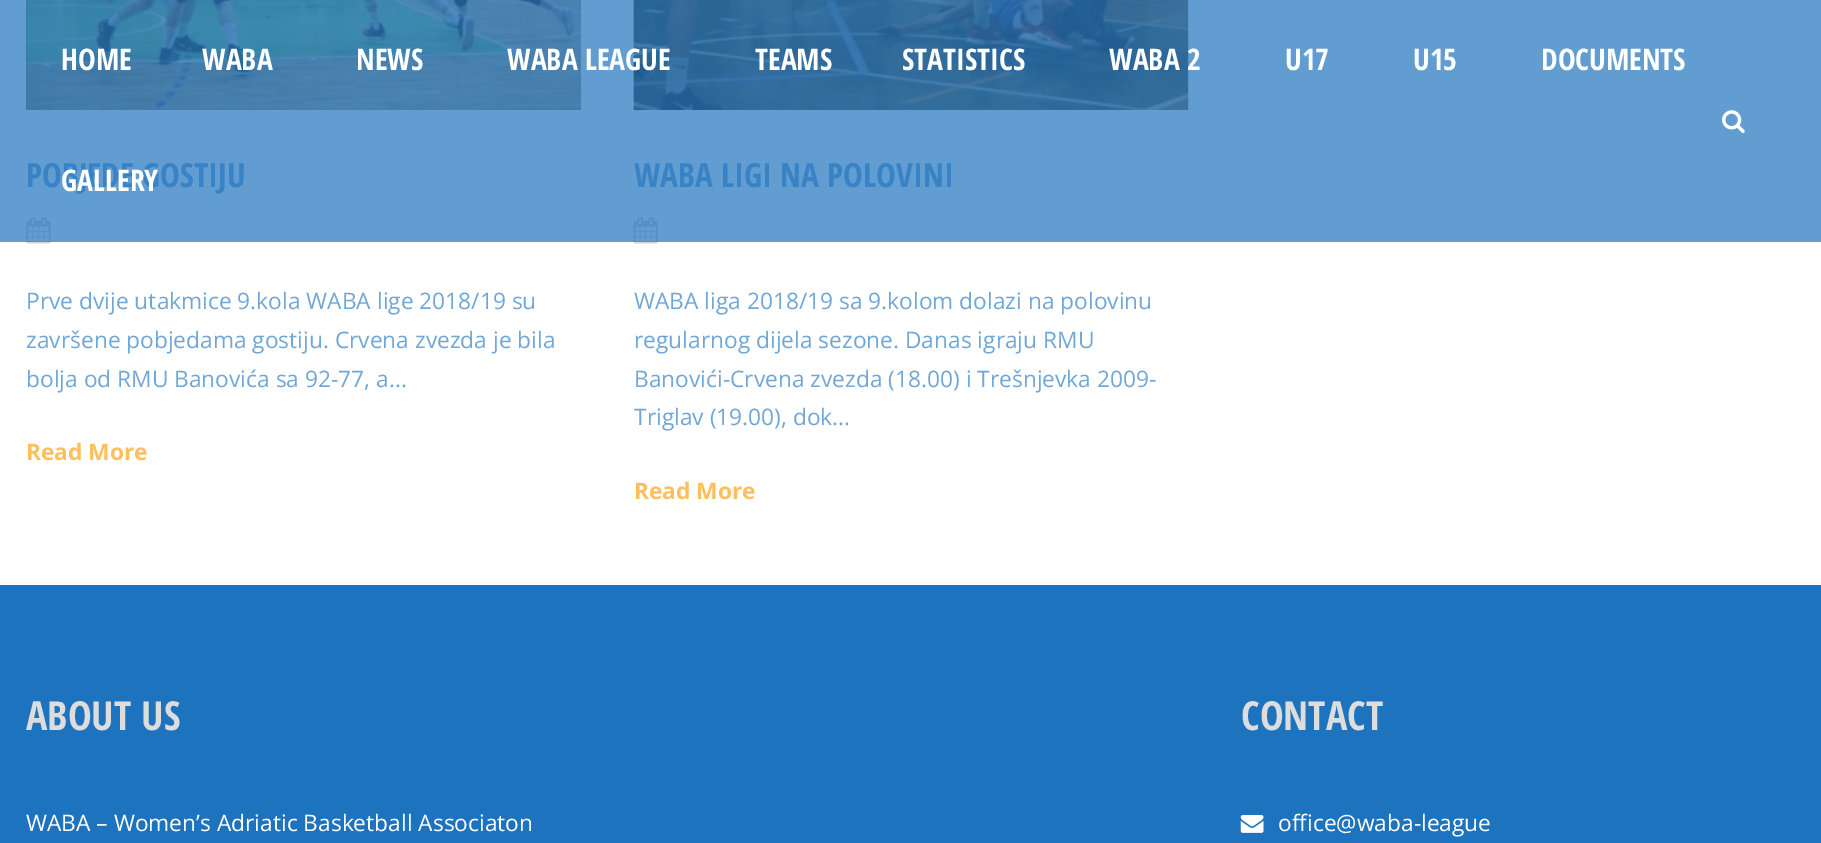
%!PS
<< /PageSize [1821 843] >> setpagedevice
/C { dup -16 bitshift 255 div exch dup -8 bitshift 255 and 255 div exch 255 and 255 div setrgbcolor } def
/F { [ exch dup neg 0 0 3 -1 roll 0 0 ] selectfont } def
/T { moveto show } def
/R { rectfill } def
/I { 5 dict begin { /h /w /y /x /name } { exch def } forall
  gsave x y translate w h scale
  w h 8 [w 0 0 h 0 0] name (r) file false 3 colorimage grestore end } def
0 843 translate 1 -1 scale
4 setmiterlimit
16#FFFFFF C
0 0 1821 843 R
16#629DD2 C
0 0 1821 242 R
16#316DA1 C
26 0 555 110 R
(2.rgb) 26 0 555 110 I
/OpenSansCondensed-Bold 29.75 F
16#FFFFFF C
(HOME) 61 70 T
(WABA) 202 70 T
(NEWS) 356 70 T
16#326DA2 C
634 0 554 110 R
(4.rgb) 633 0 556 110 I
16#FFFFFF C
(WABA LEAGUE) 507 70 T
(TEAMS) 755 70 T
(STATISTICS) 902 70 T
(WABA 2) 1109 70 T
(U17) 1285 70 T
(U15) 1413 70 T
(DOCUMENTS) 1541 70 T
/OpenSansCondensed-Bold 33.25 F
16#3783C5 C
(POBJEDE GOSTIJU) 26 187 T
/OpenSansCondensed-Bold 29.75 F
16#FFFFFF C
(GALLERY) 61 191 T
(1.rgb) 1722 110 23 23 I
(3.rgb) 26 217 25 27 I
/OpenSans-Regular 22.75 F
16#71A7D6 C
(Prve dvije utakmice 9.kola WABA lige 2018/19 su) 26 309 T
(završene pobjedama gostiju. Crvena zvezda je bila) 26 348 T
(bolja od RMU Banovića sa 92-77, a...) 26 387 T
/OpenSans-Bold 22.75 F
16#FFBF5E C
(Read More) 26 460 T
/OpenSansCondensed-Bold 33.25 F
16#3783C5 C
(WABA LIGI NA POLOVINI) 634 187 T
(5.rgb) 633 217 25 27 I
/OpenSans-Regular 22.75 F
16#71A7D6 C
(WABA liga 2018/19 sa 9.kolom dolazi na polovinu) 634 309 T
(regularnog dijela sezone. Danas igraju RMU) 634 348 T
(Banovići-Crvena zvezda \(18.00\) i Trešnjevka 2009-) 634 387 T
(Triglav \(19.00\), dok...) 634 425 T
/OpenSans-Bold 22.75 F
16#FFBF5E C
(Read More) 634 499 T
16#1E73BE C
0 585 1821 258 R
/OpenSansCondensed-Bold 40 F
16#DDDDDD C
(ABOUT US) 26 730 T
/OpenSans-Regular 22.75 F
16#FFFFFF C
(WABA – Women’s Adriatic Basketball Associaton) 26 831 T
/OpenSansCondensed-Bold 40 F
16#DDDDDD C
(CONTACT) 1241 730 T
(6.rgb) 1240 815 24 18 I
/OpenSans-Regular 22.75 F
16#FFFFFF C
(office@waba-league) 1278 831 T
showpage
